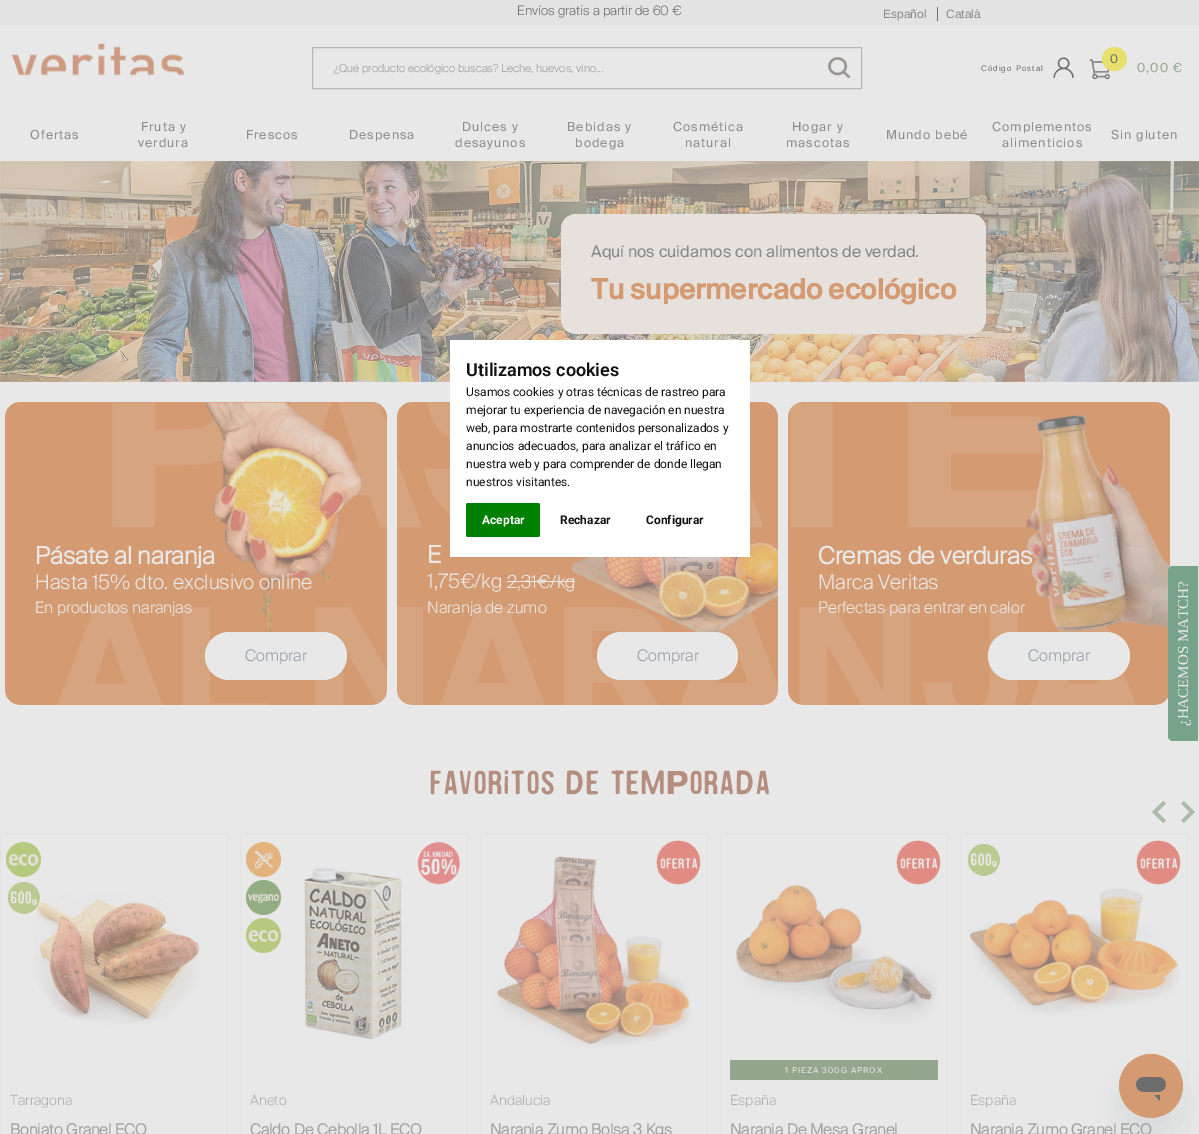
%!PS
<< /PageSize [1199 1134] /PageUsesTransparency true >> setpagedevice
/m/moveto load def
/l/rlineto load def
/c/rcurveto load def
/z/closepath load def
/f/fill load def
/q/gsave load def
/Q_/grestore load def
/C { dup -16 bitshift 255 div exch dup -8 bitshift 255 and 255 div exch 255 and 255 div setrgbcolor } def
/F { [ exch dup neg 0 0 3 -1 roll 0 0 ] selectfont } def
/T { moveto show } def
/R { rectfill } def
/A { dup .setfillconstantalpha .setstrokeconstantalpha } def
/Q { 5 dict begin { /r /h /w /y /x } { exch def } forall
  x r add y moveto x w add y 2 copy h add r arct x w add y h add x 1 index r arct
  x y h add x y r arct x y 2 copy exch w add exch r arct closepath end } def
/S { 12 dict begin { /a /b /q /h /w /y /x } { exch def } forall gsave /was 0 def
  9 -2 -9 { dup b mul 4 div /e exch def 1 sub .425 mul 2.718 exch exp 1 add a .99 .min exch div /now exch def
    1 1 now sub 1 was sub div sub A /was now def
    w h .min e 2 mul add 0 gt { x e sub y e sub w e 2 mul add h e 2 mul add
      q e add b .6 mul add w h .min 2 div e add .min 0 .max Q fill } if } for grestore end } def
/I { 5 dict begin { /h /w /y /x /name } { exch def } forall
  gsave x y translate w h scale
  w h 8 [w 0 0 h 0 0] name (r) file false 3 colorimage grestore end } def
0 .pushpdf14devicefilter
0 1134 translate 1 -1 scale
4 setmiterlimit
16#E8E8E8 C
0 0 1199 1134 R
16#E3E3E3 C
0 0 1199 25 R
/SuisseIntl-Light 13 F
16#6D6D6D C
(Envíos gratis a partir de 60 €) 517 15 T
/LiberationSans-Regular 12 F
16#888888 C
(Español) 883 18 T
16#6D6D6D C
937 7 1 14 R
16#888888 C
(Català) 946 18 T
(1.rgb) 12 43 172 33 I
16#B6B6B6 C
312.5 47.5 549 41 rectstroke
/SuisseIntl-Light 11 F
16#9E9E9E C
(¿Qué producto ecológico buscas? Leche, huevos, vino...) 334 72 T
(2.rgb) 828 57 23 21 I
/LiberationSans-Regular 8 F
16#6D6D6D C
981 71 m 1 0 (Código Postal) ashow
(3.rgb) 1053 57 21 21 I
(4.rgb) 1089 59 21 21 I
16#E8E06D C
1102 47 25 24 12 Q f
/SuisseIntl-Regular 12 F
16#6D6D6D C
1110 63 m 1 0 (0) ashow
/SuisseIntl-Regular 12.5 F
16#94A68D C
1137 72 m 1 0 (0,00 €) ashow
16#8E8E8E C
30 139 m 1 0 (Ofertas) ashow
141 131 m 1 0 (Fruta y) ashow
138 147 m 1 0 (verdura) ashow
246 139 m 1 0 (Frescos) ashow
349 139 m 1 0 (Despensa) ashow
462 131 m 1 0 (Dulces y) ashow
455 147 m 1 0 (desayunos) ashow
567 131 m 1 0 (Bebidas y) ashow
575 147 m 1 0 (bodega) ashow
673 131 m 1 0 (Cosmética) ashow
685 147 m 1 0 (natural) ashow
792 131 m 1 0 (Hogar y) ashow
786 147 m 1 0 (mascotas) ashow
886 139 m 1 0 (Mundo bebé) ashow
992 131 m 1 0 (Complementos) ashow
1002 147 m 1 0 (alimenticios) ashow
1111 139 m 1 0 (Sin gluten) ashow
(5.rgb) 0 161 1199 221 I
16#E6E1DD C
561 214 425 120 15 Q f
/SuisseIntl-Regular 16 F
16#888888 C
(Aquí nos cuidamos con alimentos de verdad.) 591 257 T
/SuisseIntl-Bold 28 F
16#D49B73 C
(Tu supermercado ecológico) 591 299 T
(6.rgb) 5 402 382 303 I
/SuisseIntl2-Bold 24 F
16#E8E8E8 C
(Pásate al naranja) 35 564 T
/SuisseIntl-Light 20 F
(Hasta 15% dto. exclusivo online) 35 589 T
/SuisseIntl-Light 16 F
(En productos naranjas) 35 613 T
205 632 142 48 24 Q f
16#999FA9 C
(Comprar) 245 661 T
(7.rgb) 397 402 381 303 I
/SuisseIntl2-Bold 24 F
16#E8E8E8 C
(E) 427 563 T
/SuisseIntl-Light 20 F
(1,75€/kg) 427 588 T
/SuisseIntl-Light 18 F
(2,31€/kg) 507 588 T
507 581 68 1 R
/SuisseIntl-Light 16 F
(Naranja de zumo) 427 613 T
597 632 141 48 24 Q f
16#999FA9 C
(Comprar) 637 661 T
(8.rgb) 788 402 382 303 I
/SuisseIntl2-Bold 24 F
16#E8E8E8 C
(Cremas de verduras) 818 564 T
/SuisseIntl-Light 20 F
(Marca Veritas) 818 589 T
/SuisseIntl-Light 16 F
(Perfectas para entrar en calor) 818 613 T
988 632 142 48 24 Q f
16#999FA9 C
(Comprar) 1028 661 T
/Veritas-Regular 33 F
16#B68E7F C
(Favoritos de temporada) 429 794 T
16#ADBAA8 C
1163 823 m 3 -2.5 l -8.5 -8.5 l 8.5 -8.5 l -3 -2.5 l -11 11 l z 1184 801 m -3 2.5 l 8.5 8.5 l -8.5 8.5 l 3 2.5 l 11 -11 l z f
16#E3E3E3 C
.5 833.5 227 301 rectstroke
(9.rgb) 6 842 35 35 I
(11.rgb) 33 895 167 130 I
(10.rgb) 8 882 32 32 I
/SuisseIntl-Light 14 F
16#B1B1B1 C
(Tarragona) 10 1105 T
/SuisseIntl2-Bold 15.6 F
16#A5A5A5 C
(Boniato Granel ECO) 10 1135 T
16#E3E3E3 C
240.5 833.5 227 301 rectstroke
(12.rgb) 246 842 35 35 I
(13.rgb) 246 880 35 35 I
(9.rgb) 246 918 35 35 I
(14.rgb) 417 842 44 43 I
(15.rgb) 304 868 98 172 I
/SuisseIntl-Light 14 F
16#B1B1B1 C
(Aneto) 250 1105 T
/SuisseIntl2-Bold 15.6 F
16#A5A5A5 C
(Caldo De Cebolla 1L ECO) 250 1135 T
16#E3E3E3 C
480.5 833.5 227 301 rectstroke
(17.rgb) 494 856 198 192 I
(16.rgb) 656 840 45 45 I
/SuisseIntl-Light 14 F
16#B1B1B1 C
(Andalucia) 490 1105 T
/SuisseIntl2-Bold 15.6 F
16#A5A5A5 C
(Naranja Zumo Bolsa 3 Kgs) 490 1135 T
16#E3E3E3 C
720.5 833.5 227 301 rectstroke
(18.rgb) 896 840 45 45 I
(19.rgb) 735 885 203 139 I
16#94A68D C
730 1060 208 20 R
/SuisseIntl-Regular 8 F
16#E8E8E8 C
785 1073 m 1 0 (1 PIEZA 300G APROX) ashow
/SuisseIntl-Light 14 F
16#B1B1B1 C
(España) 730 1105 T
/SuisseIntl2-Bold 15.6 F
16#A5A5A5 C
(Naranja De Mesa Granel) 730 1135 T
16#E3E3E3 C
960.5 833.5 227 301 rectstroke
(20.rgb) 968 844 32 32 I
(21.rgb) 1136 840 45 45 I
(22.rgb) 969 888 211 128 I
/SuisseIntl-Light 14 F
16#B1B1B1 C
(España) 970 1105 T
/SuisseIntl2-Bold 15.6 F
16#A5A5A5 C
(Naranja Zumo Granel ECO) 970 1135 T
16#FFFFFF C
450 340 300 217 R
/Roboto-SemiBold 18 F
16#111111 C
(Utilizamos cookies) 466 376 T
/Roboto-Regular 12 F
(Usamos cookies y otras técnicas de rastreo para) 466 396 T
(mejorar tu experiencia de navegación en nuestra) 466 414 T
(web, para mostrarte contenidos personalizados y) 466 432 T
(anuncios adecuados, para analizar el tráfico en) 466 450 T
(nuestra web y para comprender de donde llegan) 466 468 T
(nuestros visitantes.) 466 486 T
16#008000 C
466 503 74 34 2 Q f
/Roboto-Bold 12 F
16#FFFFFF C
(Aceptar) 482 524 T
16#111111 C
(Rechazar) 560 524 T
(Configurar) 646 524 T
16#76A38A C
1168 736 m 0 -165 l 0 -3 2 -5 5 -5 c 25 0 l 0 175 l -25 0 l -3 0 -5 -2 -5 -5 c z f
/LiberationSerif-Regular 15 F
16#E8E8E8 C
q 1188 726 translate -90 rotate 0 0 m (¿HACEMOS MATCH?) show Q_
16#789092 C
1119 1074 64 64 32 15 .15 S
(23.rgb) 1119 1054 64 64 I
.poppdf14devicefilter showpage
